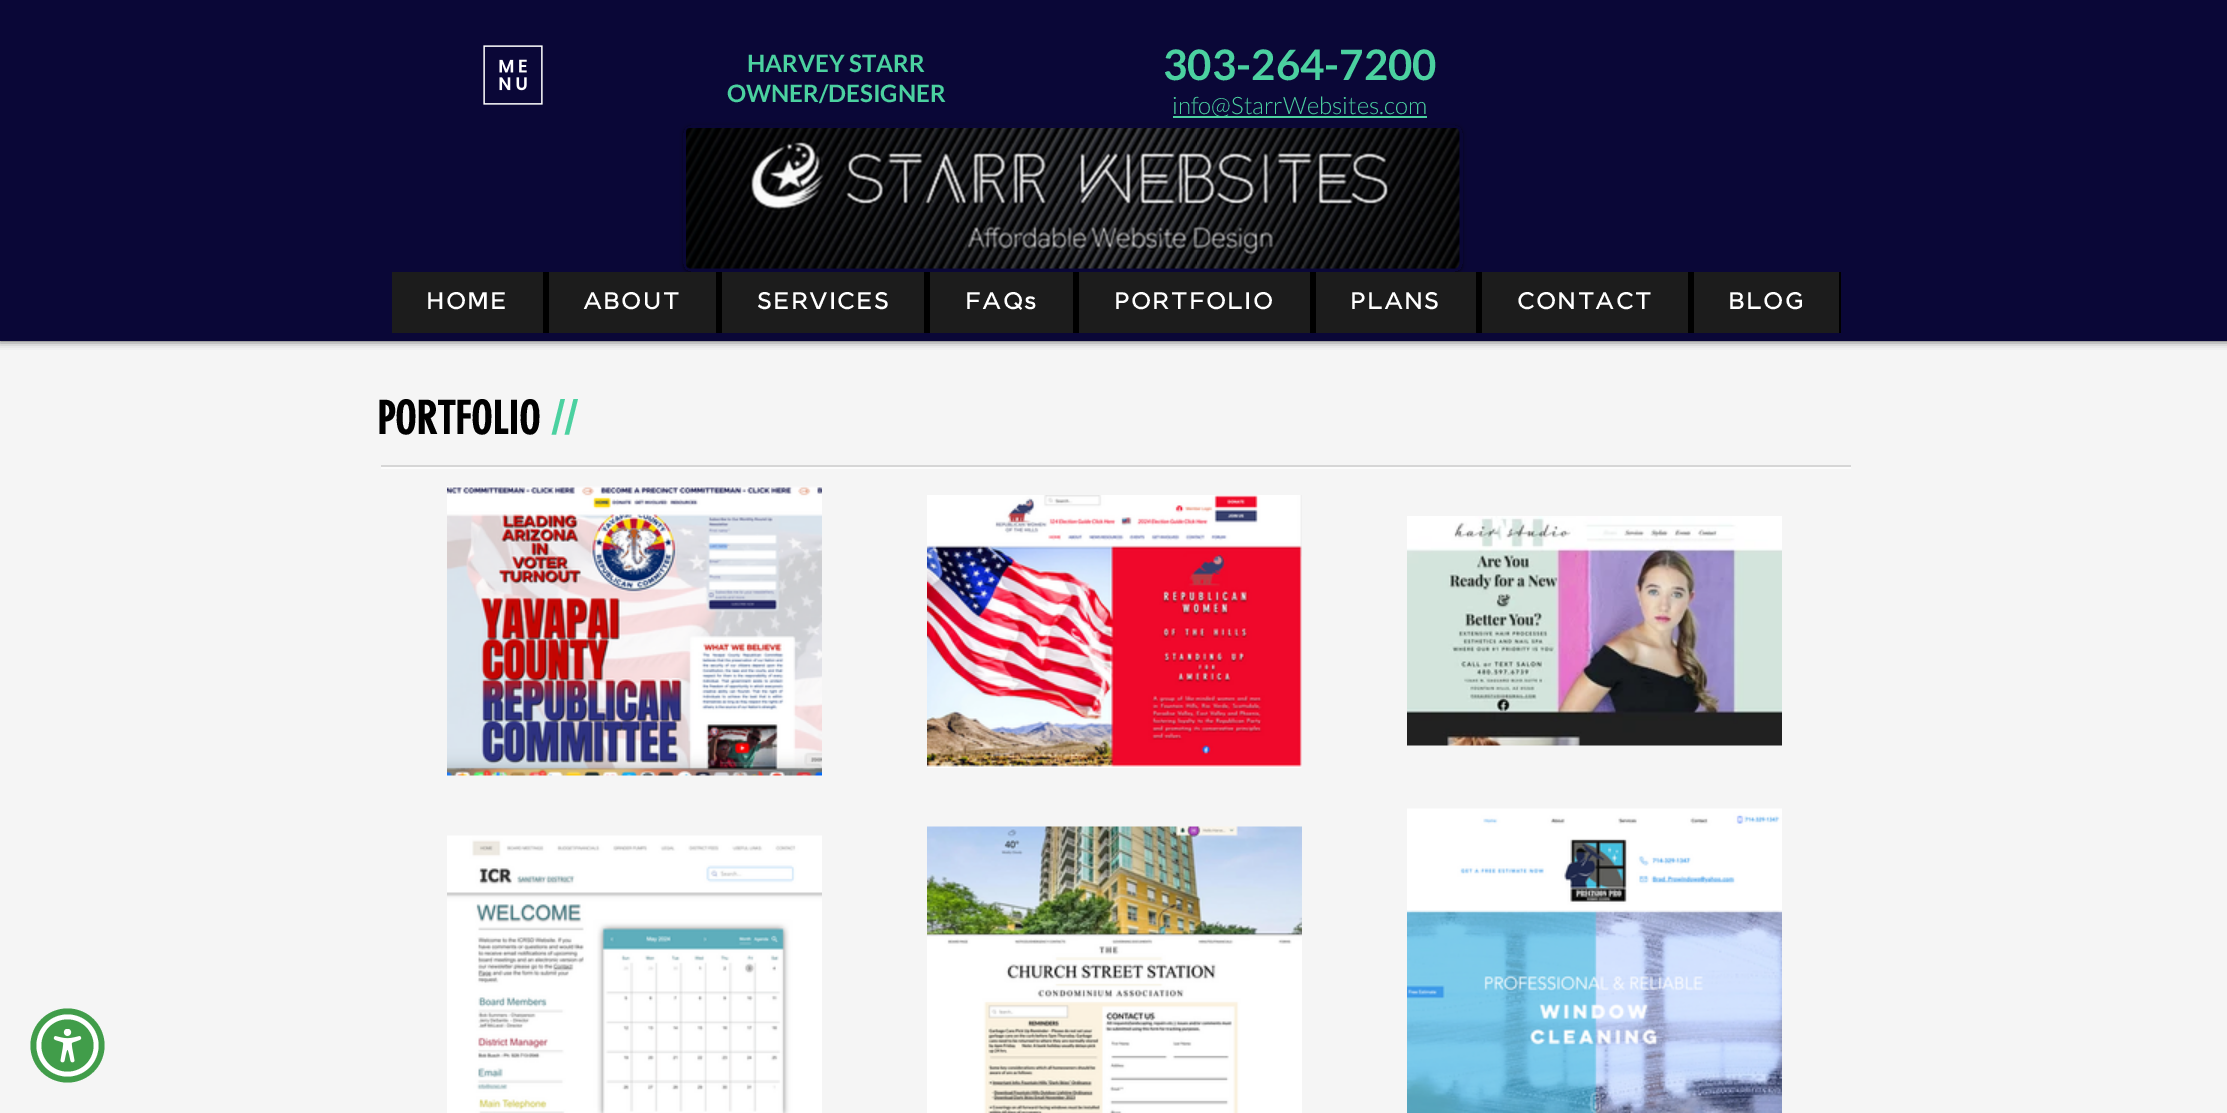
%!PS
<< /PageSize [2227 1113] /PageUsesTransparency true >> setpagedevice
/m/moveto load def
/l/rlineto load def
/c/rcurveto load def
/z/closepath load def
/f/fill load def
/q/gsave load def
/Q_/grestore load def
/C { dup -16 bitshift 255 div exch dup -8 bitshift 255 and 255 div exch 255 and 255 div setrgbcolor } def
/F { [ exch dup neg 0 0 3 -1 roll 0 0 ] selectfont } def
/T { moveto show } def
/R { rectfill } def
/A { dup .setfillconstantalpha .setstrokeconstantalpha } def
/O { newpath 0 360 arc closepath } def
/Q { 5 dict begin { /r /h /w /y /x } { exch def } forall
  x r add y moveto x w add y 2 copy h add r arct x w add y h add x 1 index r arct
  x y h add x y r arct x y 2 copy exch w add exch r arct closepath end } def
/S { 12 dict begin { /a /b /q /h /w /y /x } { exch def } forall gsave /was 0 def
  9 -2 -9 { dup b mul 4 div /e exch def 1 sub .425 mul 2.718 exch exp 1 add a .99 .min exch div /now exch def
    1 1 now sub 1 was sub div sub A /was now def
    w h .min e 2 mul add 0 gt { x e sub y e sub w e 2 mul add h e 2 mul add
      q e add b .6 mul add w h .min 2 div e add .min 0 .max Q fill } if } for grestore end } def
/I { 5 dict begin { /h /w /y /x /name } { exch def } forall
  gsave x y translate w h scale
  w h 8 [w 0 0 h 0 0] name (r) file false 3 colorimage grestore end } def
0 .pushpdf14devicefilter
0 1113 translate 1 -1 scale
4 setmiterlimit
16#F5F5F5 C
0 0 2227 1113 R
16#000000 C
0 0 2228 341 0 4 .7 S
16#0A0737 C
0 0 2227 341 R
(1.rgb) 483 45 60 60 I
/Lato-Bold 24 F
16#4BD1A0 C
(HARVEY STARR) 747 72 T
(OWNER/DESIGNER) 727 102 T
/Lato-Bold 42 F
(303-264-7200) 1163 80 T
1173 116 254 2 R
/Lato-Light 24 F
(info@StarrWebsites.com) 1172 114 T
q
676 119 m 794 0 l 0 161 l -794 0 l z 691 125 m 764 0 l 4.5 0 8 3.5 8 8 c 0 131 l 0 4.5 -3.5 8 -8 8 c -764 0 l -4.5 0 -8 -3.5 -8 -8 c 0 -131 l 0 -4.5 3.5 -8 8 -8 c z eoclip newpath
16#000000 C
683 126 780 147 8 2 .5 S
Q_
(2.rgb) 686 128 774 141 I
16#000000 C
543 272 1298 61 R
16#1C1C1C C
392 272 151 61 R
/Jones-Medium 24 F
16#FFFFFF C
426 309 m 1.25 0 (HOME) ashow
16#1C1C1C C
549 272 167 61 R
16#FFFFFF C
583 309 m 1.25 0 (ABOUT) ashow
16#1C1C1C C
722 272 202 61 R
16#FFFFFF C
757 309 m 1.25 0 (SERVICES) ashow
16#1C1C1C C
930 272 143 61 R
16#FFFFFF C
965 309 m 1.25 0 (FAQs) ashow
16#1C1C1C C
1079 272 231 61 R
16#FFFFFF C
1114 309 m 1.25 0 (PORTFOLIO) ashow
16#1C1C1C C
1316 272 160 61 R
16#FFFFFF C
1350 309 m 1.25 0 (PLANS) ashow
16#1C1C1C C
1482 272 206 61 R
16#FFFFFF C
1517 309 m 1.25 0 (CONTACT) ashow
16#1C1C1C C
1694 272 145 61 R
16#FFFFFF C
1728 309 m 1.25 0 (BLOG) ashow
/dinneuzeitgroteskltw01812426-Bold 45 F
16#000000 C
(PORTFOLIO) 377 434 T
16#4BD1A0 C
(//) 551 434 T
16#D6D6D6 C
381 465 1470 2 R
16#FCFCFC C
381 467 1470 2 R
(3.rgb) 447 486 375 290 I
(4.rgb) 927 495 375 273 I
(5.rgb) 1407 516 375 230 I
(6.rgb) 447 835 375 278 I
(7.rgb) 927 826 375 287 I
(8.rgb) 1407 808 375 305 I
16#419D4A C
67.5 1045.5 37 O f
16#FFFFFF C
67.5 1045.5 31 O f
16#419D4A C
67.5 1045.5 26 O f
(9.rgb) 53 1029 29 34 I
.poppdf14devicefilter showpage
